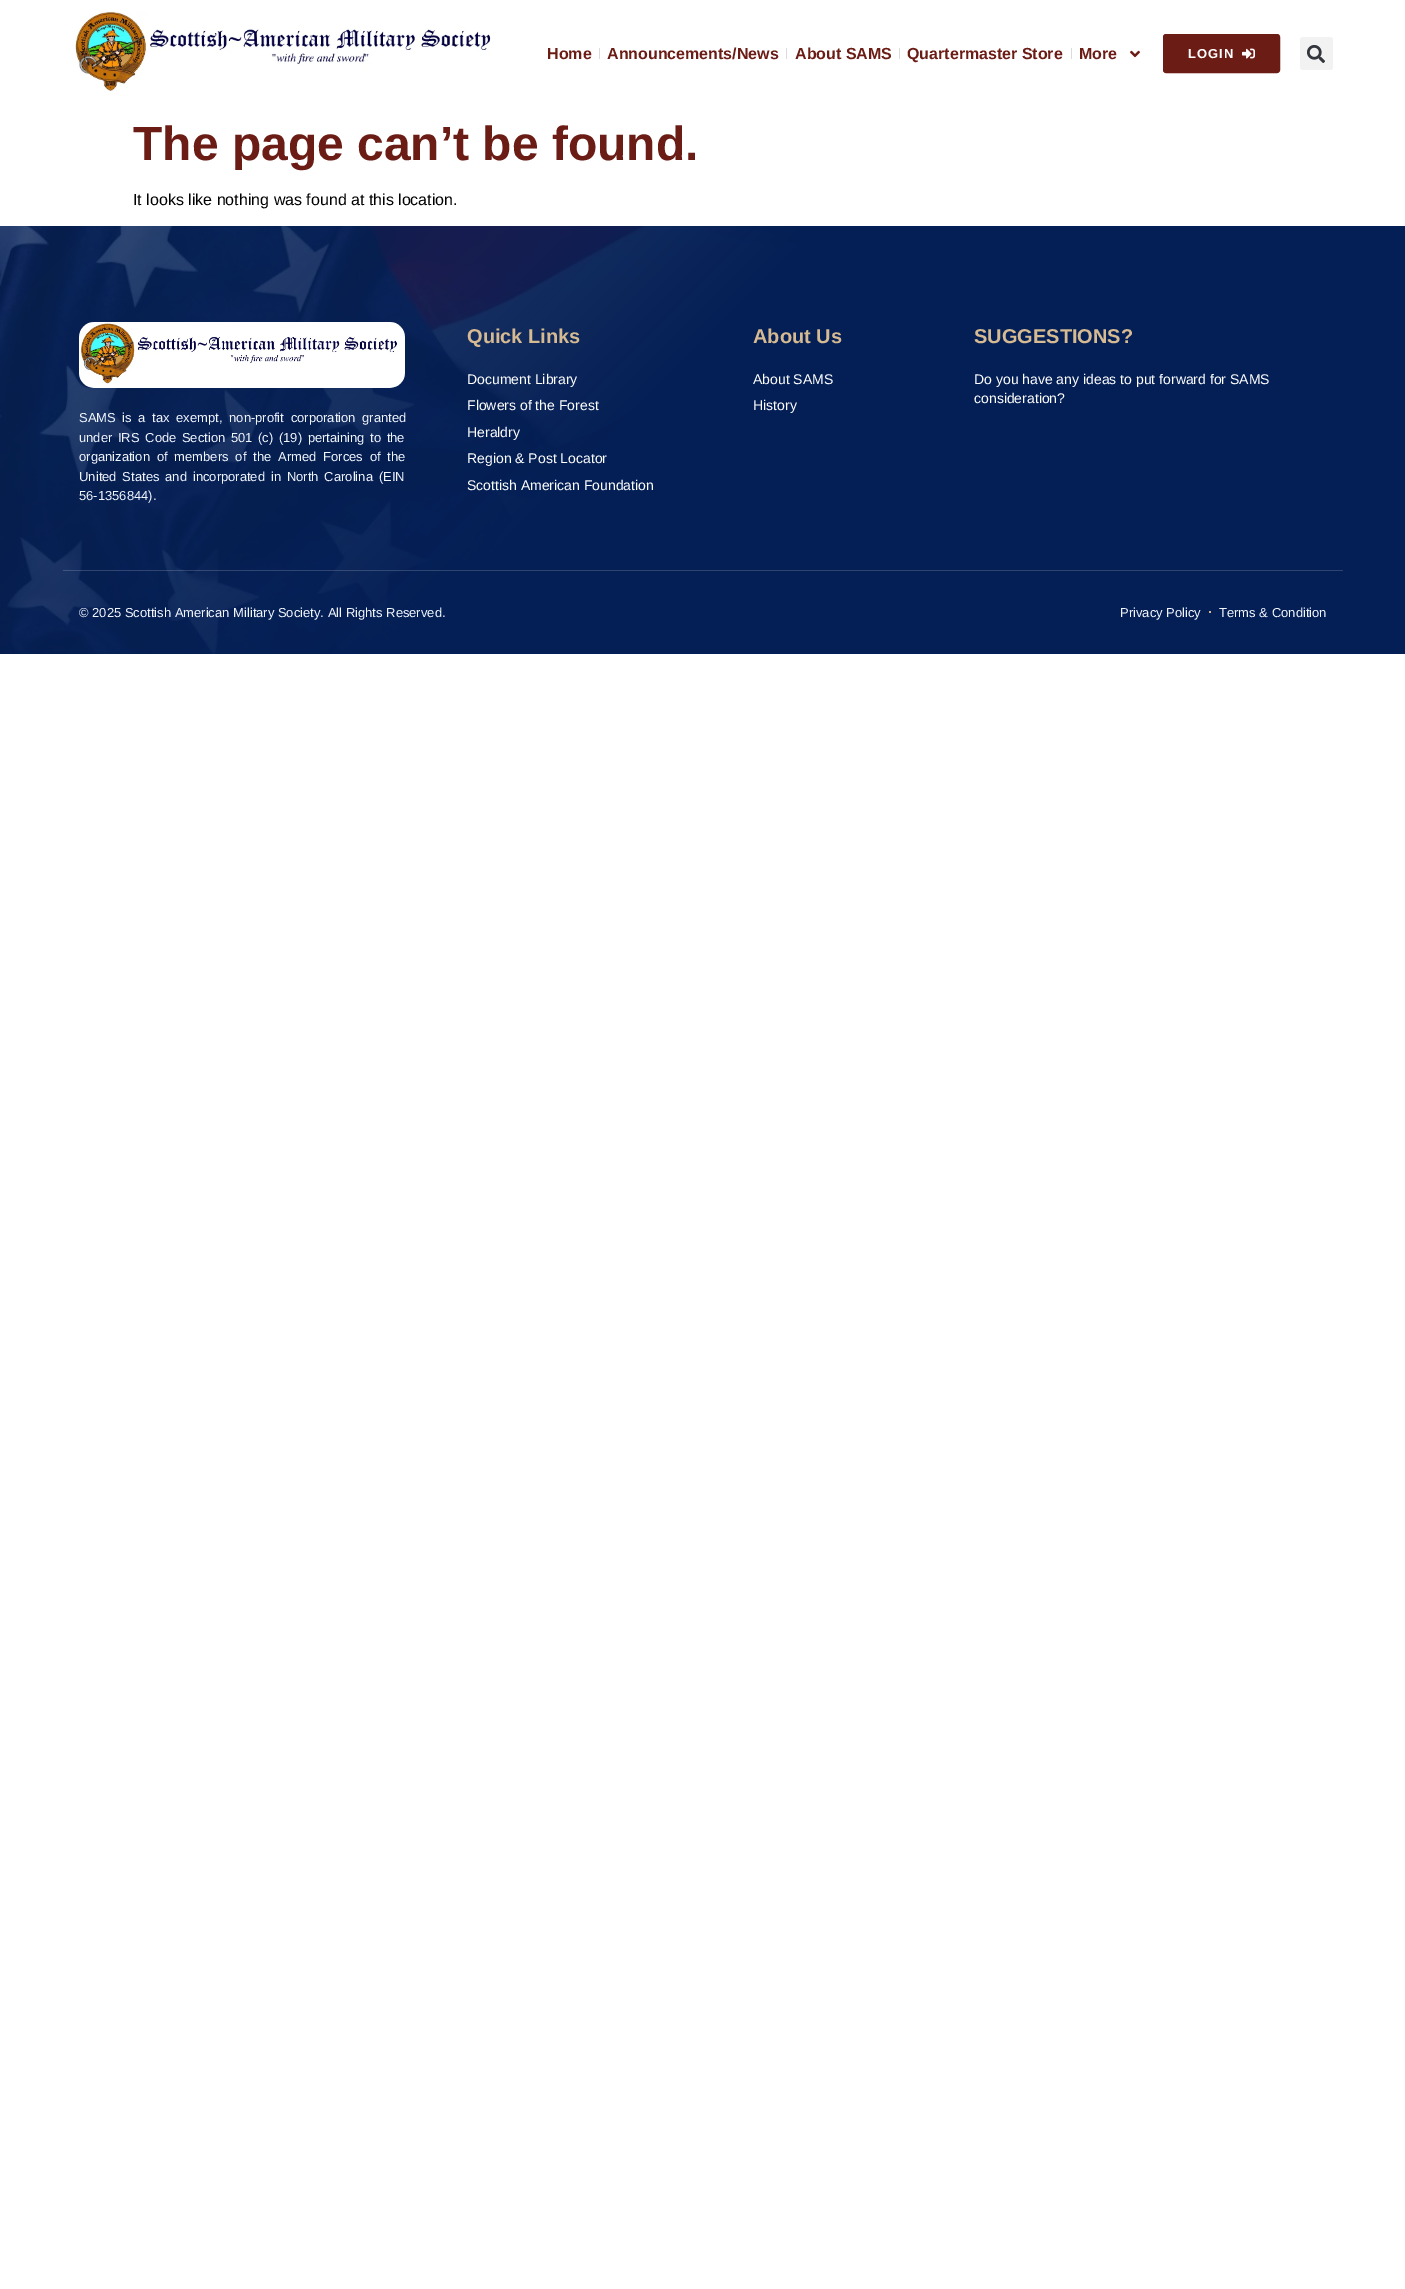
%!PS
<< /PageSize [1405 2289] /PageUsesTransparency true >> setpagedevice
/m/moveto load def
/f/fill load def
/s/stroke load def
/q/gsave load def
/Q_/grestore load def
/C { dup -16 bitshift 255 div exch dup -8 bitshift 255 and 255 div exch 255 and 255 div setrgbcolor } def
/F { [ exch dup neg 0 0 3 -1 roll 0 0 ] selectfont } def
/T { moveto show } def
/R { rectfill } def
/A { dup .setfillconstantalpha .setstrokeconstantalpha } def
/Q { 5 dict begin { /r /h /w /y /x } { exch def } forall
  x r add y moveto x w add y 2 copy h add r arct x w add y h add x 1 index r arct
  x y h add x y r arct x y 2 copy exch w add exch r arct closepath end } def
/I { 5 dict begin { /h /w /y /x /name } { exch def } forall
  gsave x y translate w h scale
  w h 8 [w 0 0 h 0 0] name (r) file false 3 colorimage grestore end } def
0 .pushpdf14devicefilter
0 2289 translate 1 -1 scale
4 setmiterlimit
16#FFFFFF C
0 0 1405 2289 R
(1.rgb) 75 11 416 80 I
/LiberationSans-Bold 16 F
16#6B1C15 C
(Home) 547 59 T
16#DBDBDB C
599 48 1 11 R
16#6B1C15 C
(Announcements/News) 607 59 T
16#DBDBDB C
786 48 1 11 R
16#6B1C15 C
(About SAMS) 795 59 T
16#DBDBDB C
899 48 1 11 R
16#6B1C15 C
(Quartermaster Store) 907 59 T
16#DBDBDB C
1071 48 1 11 R
16#6B1C15 C
(More) 1079 59 T
(2.rgb) 1130 50 10 8 I
1163.5 34.5 116 38 2.5 Q q f Q_
s
/LiberationSans-Bold 13 F
16#FFFFFF C
1188 58 m 1 0 (LOGIN) ashow
(3.rgb) 1242 48 13 11 I
16#F2F2F2 C
1300 37 33 33 3 Q f
(4.rgb) 1307 45 18 18 I
/LiberationSans-Bold 48 F
16#6B1C15 C
(The page can’t be found.) 133 160 T
/LiberationSans-Regular 16 F
16#000000 C
(It looks like nothing was found at this location.) 133 205 T
(5.rgb) 0 226 1405 428 I
/LiberationSans-Bold 20 F
16#D6BA92 C
(Quick Links) 467 343 T
/LiberationSans-Regular 14 F
16#FFFFFF C
(Document Library) 467 384 T
(Flowers of the Forest) 467 410 T
(Heraldry) 467 437 T
(Region & Post Locator) 467 463 T
(Scottish American Foundation) 467 490 T
/LiberationSans-Bold 20 F
16#D6BA92 C
(About Us) 753 343 T
/LiberationSans-Regular 14 F
16#FFFFFF C
(About SAMS) 753 384 T
(History) 753 410 T
/LiberationSans-Bold 20 F
16#D6BA92 C
(SUGGESTIONS?) 974 343 T
/LiberationSans-Regular 14 F
16#FFFFFF C
(Do you have any ideas to put forward for SAMS) 974 384 T
(consideration?) 974 403 T
(6.rgb) 79 322 326 66 I
/LiberationSans-Regular 13 F
16#F1F5FE C
79 422 m 3 0 32 (SAMS is a tax exempt, non-profit corporation granted) widthshow
79 442 m 2 0 32 (under IRS Code Section 501 \(c\) \(19\) pertaining to the) widthshow
79 461 m 3.25 0 32 (organization of members of the Armed Forces of the) widthshow
79 481 m 2.25 0 32 (United States and incorporated in North Carolina \(EIN) widthshow
(56-1356844\).) 79 500 T
0.17 A
16#FFFFFF C
63 570 1280 1 R
1 A
16#F1F5FE C
(© 2025 Scottish American Military Society. All Rights Reserved.) 79 617 T
(Privacy Policy) 1120 617 T
16#D6BA92 C
1209 611 2 2 R
16#F1F5FE C
(Terms & Condition) 1219 617 T
.poppdf14devicefilter showpage
